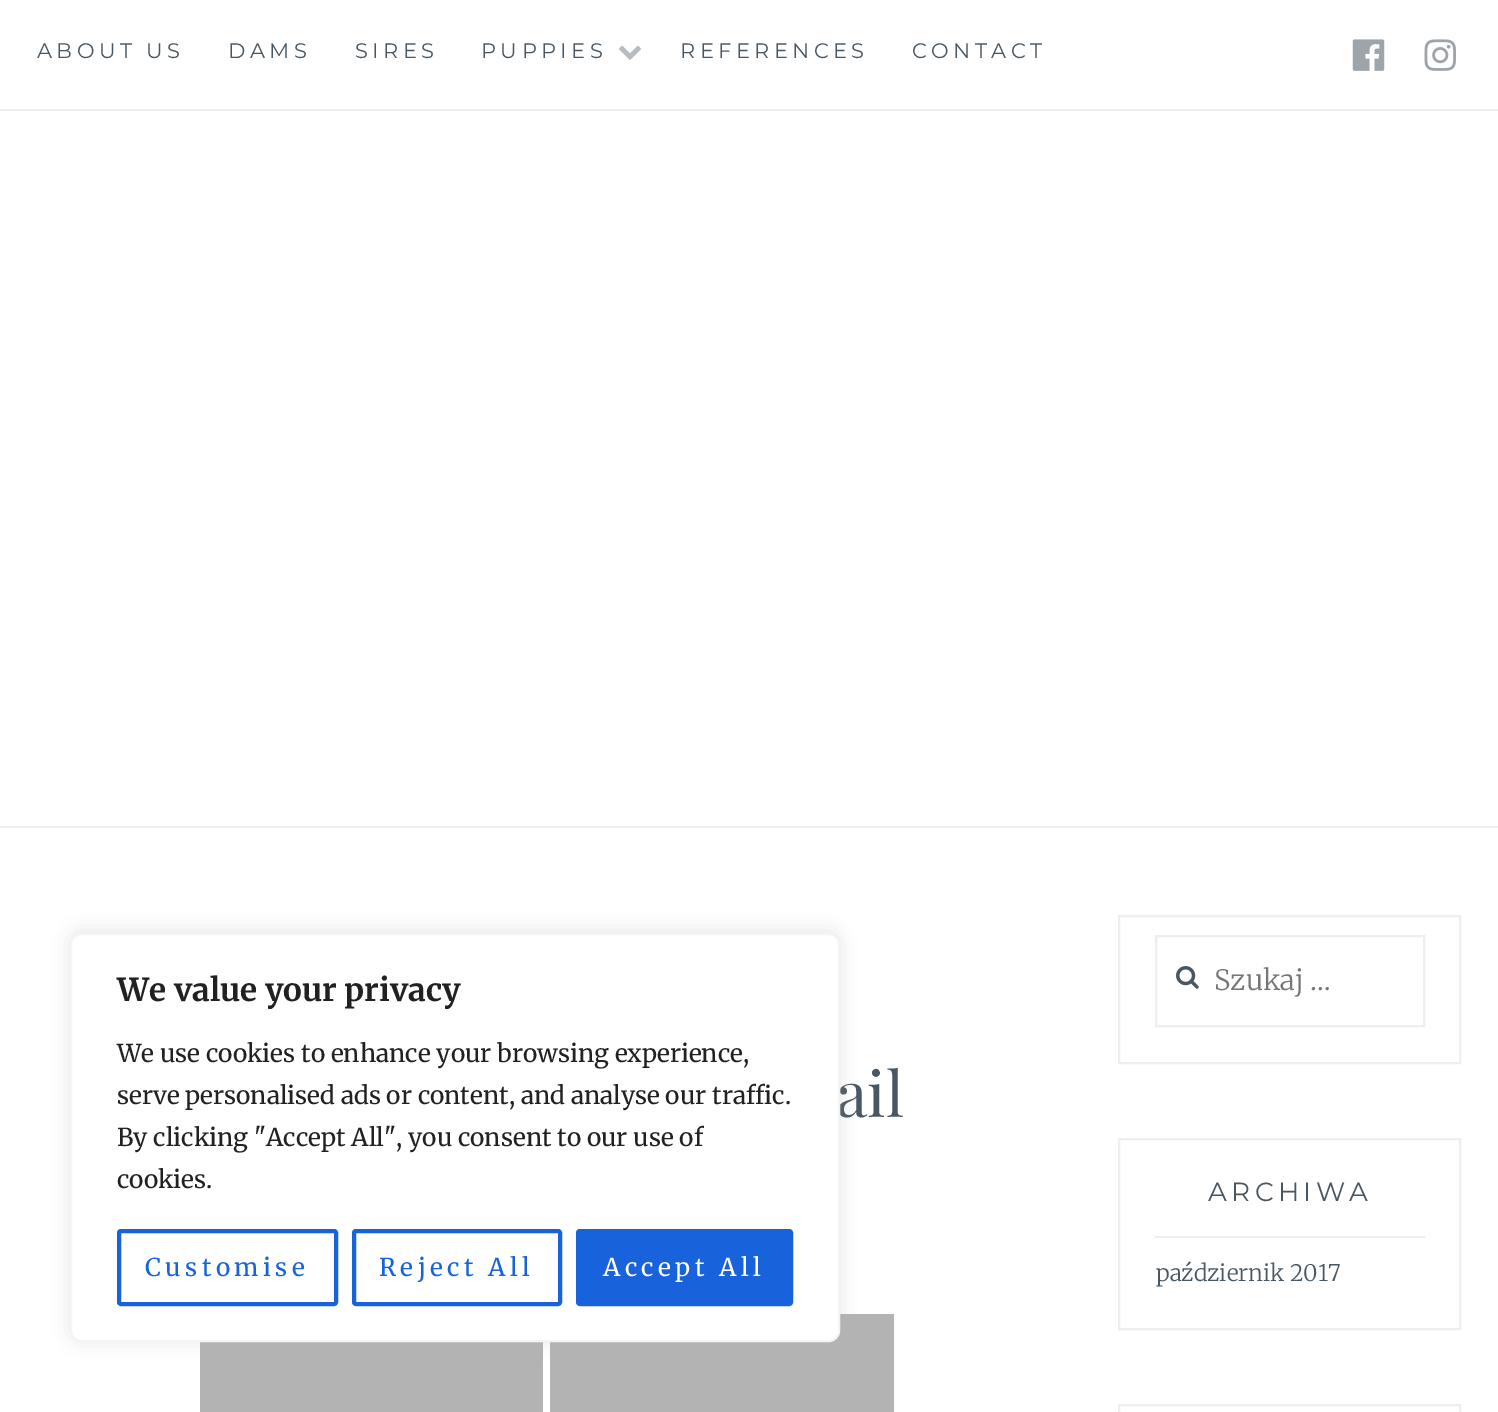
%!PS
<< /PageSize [1498 1412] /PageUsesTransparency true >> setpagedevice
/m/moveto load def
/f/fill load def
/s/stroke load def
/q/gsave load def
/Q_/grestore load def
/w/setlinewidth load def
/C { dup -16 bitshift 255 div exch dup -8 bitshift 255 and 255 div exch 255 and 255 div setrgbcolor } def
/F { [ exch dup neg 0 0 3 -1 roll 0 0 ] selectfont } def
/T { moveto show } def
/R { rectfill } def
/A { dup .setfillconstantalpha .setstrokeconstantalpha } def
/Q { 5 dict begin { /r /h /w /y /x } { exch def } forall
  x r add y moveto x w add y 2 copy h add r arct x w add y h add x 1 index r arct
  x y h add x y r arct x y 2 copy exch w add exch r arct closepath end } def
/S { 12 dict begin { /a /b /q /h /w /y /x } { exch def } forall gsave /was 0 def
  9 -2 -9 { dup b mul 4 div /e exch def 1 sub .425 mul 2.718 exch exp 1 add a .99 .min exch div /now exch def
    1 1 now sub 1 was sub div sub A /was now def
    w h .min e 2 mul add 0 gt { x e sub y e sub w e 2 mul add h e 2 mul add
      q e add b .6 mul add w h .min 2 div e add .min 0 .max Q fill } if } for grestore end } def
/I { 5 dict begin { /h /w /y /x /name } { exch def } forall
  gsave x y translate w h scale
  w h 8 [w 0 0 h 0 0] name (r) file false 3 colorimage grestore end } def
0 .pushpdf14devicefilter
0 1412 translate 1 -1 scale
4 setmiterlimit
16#FFFFFF C
0 0 1498 1412 R
16#EEEEEE C
0 109 1498 2 R
/Montserrat-Regular 21 F
16#495762 C
37 58 m 4.4 0 (ABOUT US) ashow
228 58 m 4.4 0 (DAMS) ashow
355 58 m 4.4 0 (SIRES) ashow
481 58 m 4.4 0 (PUPPIES) ashow
(1.rgb) 619 45 22 15 I
680 58 m 4.4 0 (REFERENCES) ashow
912 58 m 4.4 0 (CONTACT) ashow
(2.rgb) 1352 39 33 32 I
(3.rgb) 1424 39 32 32 I
16#EEEEEE C
0 826 1498 2 R
/PlayfairDisplay-Regular 63 F
16#495762 C
(ail) 836 1117 T
16#B3B3B3 C
200 1342 343 70 R
550 1314 344 98 R
16#EEEEEE C
2 w
1119 916 341 147 rectstroke
1156 936 268 90 rectstroke
(4.rgb) 1176 966 23 23 I
/Merriweather-Light 28 F
16#757575 C
(Szukaj …) 1214 990 T
16#EEEEEE C
1119 1139 341 190 rectstroke
/Montserrat-Regular 26.25 F
16#495762 C
1208 1201 m 4.4 0 (ARCHIWA) ashow
16#EEEEEE C
1155 1236 270 2 R
/Merriweather-Light 22.75 F
16#495762 C
(październik 2017) 1156 1281 T
16#EEEEEE C
1119 1405 341 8 rectstroke
16#ACABAB C
70 931 770 410 11 9 .3 S
16#FFFFFF C
71 934 768 407 10 Q q f Q_
16#F4F4F4 C
s
/Merriweather-Bold 31.5 F
16#212121 C
(We value your privacy) 117 1001 T
/Merriweather-Regular 24.5 F
(We use cookies to enhance your browsing experience,) 117 1062 T
(serve personalised ads or content, and analyse our traffic.) 117 1104 T
(By clicking "Accept All", you consent to our use of) 117 1146 T
(cookies.) 117 1188 T
16#1863DC C
4 w
119 1231 217 73 2 Q s
145 1276 m 4.4 0 (Customise) ashow
354 1231 206 73 2 Q s
379 1276 m 4.4 0 (Reject All) ashow
578 1231 213 73 2 Q q f Q_
s
16#FFFFFF C
603 1276 m 4.4 0 (Accept All) ashow
.poppdf14devicefilter showpage
